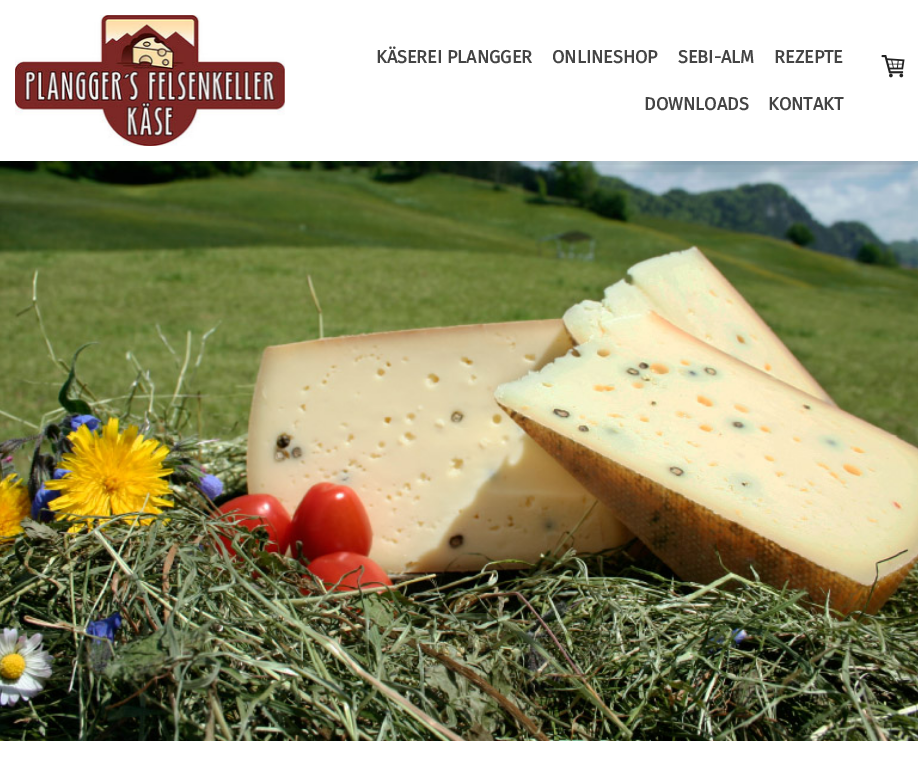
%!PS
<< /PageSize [918 781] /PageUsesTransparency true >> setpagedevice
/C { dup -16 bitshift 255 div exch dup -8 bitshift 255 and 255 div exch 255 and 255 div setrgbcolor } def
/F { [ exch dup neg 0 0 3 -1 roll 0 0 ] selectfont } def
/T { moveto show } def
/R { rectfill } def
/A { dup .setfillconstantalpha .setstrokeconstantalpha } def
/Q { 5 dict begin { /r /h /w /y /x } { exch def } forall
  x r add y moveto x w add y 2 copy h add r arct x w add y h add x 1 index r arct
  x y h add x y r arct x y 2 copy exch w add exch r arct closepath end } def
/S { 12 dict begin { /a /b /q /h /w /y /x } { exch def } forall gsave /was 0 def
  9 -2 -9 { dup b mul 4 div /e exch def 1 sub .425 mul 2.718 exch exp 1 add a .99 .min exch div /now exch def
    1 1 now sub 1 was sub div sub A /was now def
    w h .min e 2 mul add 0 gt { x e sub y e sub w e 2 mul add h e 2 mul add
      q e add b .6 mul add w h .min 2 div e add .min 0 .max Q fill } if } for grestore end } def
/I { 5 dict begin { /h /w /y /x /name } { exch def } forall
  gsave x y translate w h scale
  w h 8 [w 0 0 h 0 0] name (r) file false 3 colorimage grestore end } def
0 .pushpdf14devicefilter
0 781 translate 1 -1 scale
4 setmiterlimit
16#FFFFFF C
0 0 918 781 R
(3.rgb) 0 161 918 580 I
16#000000 C
0 0 918 161 0 15 .2 S
16#FFFFFF C
0 0 918 161 R
(1.rgb) 15 15 270 131 I
/FiraSans-Bold 18 F
16#444444 C
(KÄSEREI PLANGGER) 376 63 T
(ONLINESHOP) 552 63 T
(SEBI-ALM) 678 63 T
(REZEPTE) 774 63 T
(DOWNLOADS) 644 110 T
(KONTAKT) 768 110 T
(2.rgb) 881 55 24 23 I
.poppdf14devicefilter showpage
